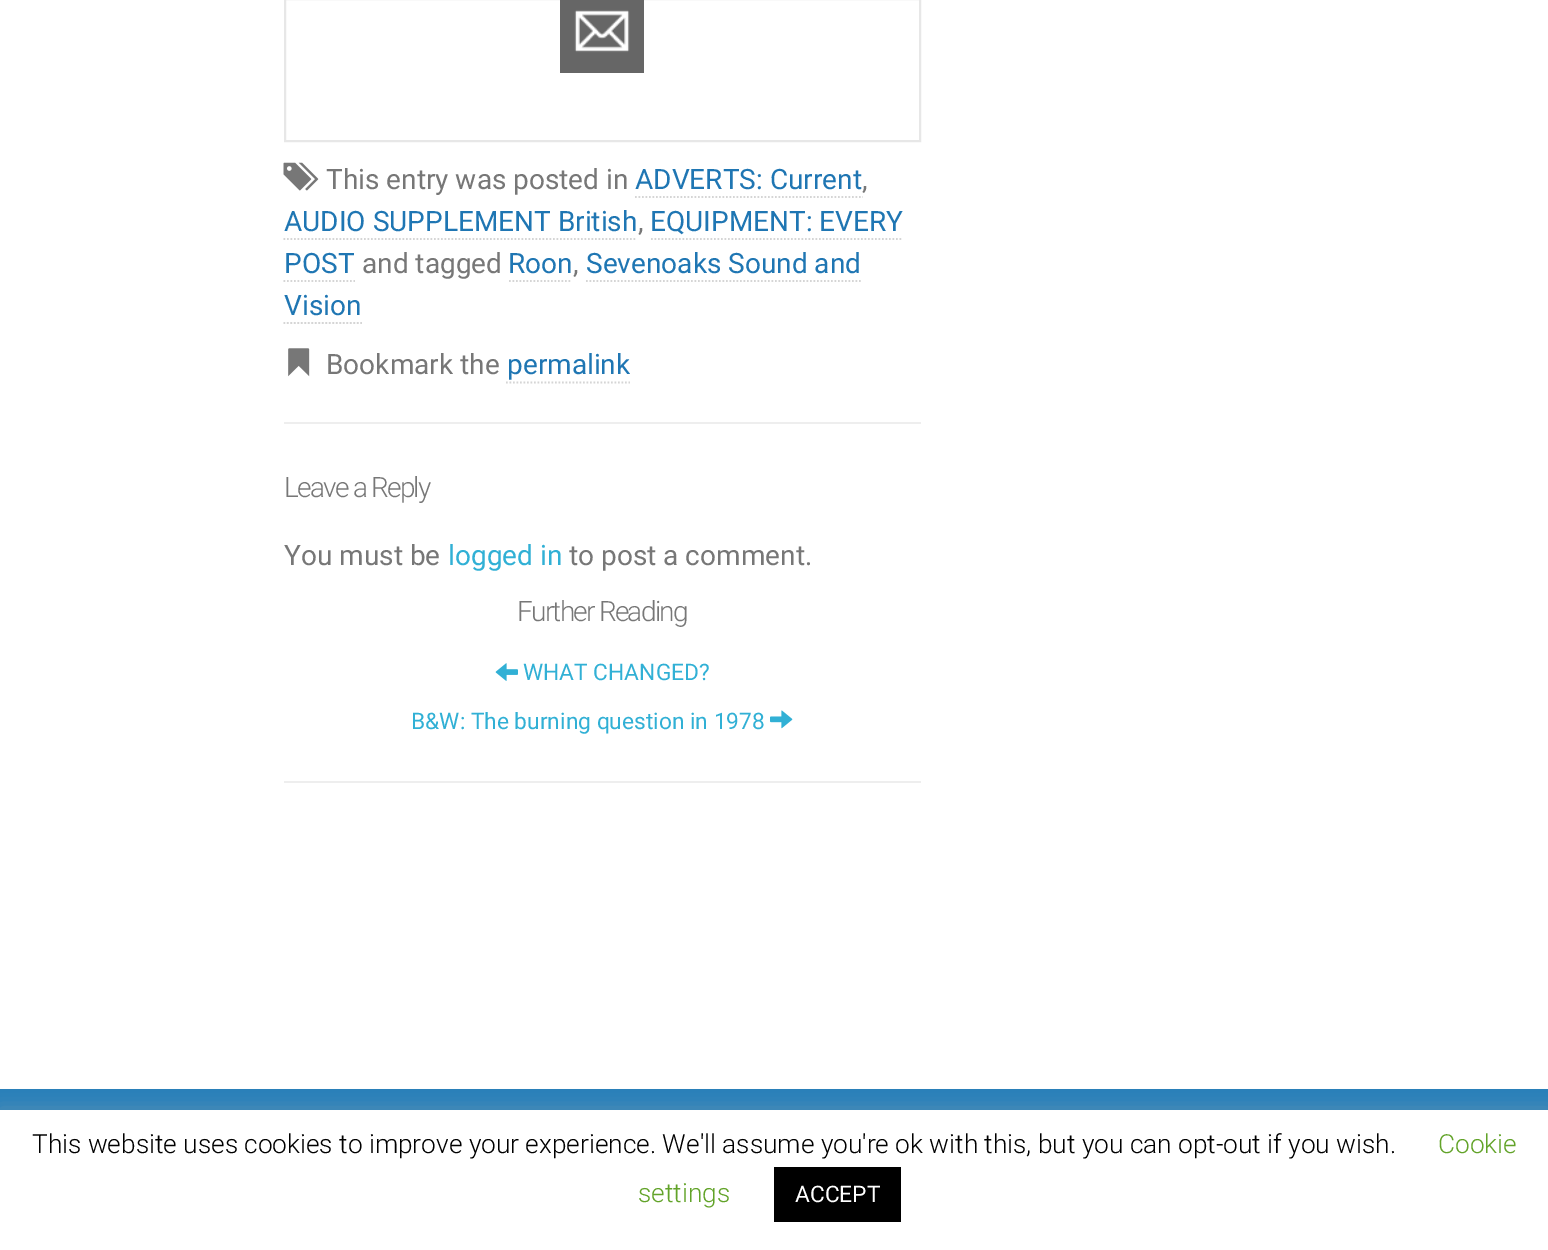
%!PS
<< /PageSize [1548 1250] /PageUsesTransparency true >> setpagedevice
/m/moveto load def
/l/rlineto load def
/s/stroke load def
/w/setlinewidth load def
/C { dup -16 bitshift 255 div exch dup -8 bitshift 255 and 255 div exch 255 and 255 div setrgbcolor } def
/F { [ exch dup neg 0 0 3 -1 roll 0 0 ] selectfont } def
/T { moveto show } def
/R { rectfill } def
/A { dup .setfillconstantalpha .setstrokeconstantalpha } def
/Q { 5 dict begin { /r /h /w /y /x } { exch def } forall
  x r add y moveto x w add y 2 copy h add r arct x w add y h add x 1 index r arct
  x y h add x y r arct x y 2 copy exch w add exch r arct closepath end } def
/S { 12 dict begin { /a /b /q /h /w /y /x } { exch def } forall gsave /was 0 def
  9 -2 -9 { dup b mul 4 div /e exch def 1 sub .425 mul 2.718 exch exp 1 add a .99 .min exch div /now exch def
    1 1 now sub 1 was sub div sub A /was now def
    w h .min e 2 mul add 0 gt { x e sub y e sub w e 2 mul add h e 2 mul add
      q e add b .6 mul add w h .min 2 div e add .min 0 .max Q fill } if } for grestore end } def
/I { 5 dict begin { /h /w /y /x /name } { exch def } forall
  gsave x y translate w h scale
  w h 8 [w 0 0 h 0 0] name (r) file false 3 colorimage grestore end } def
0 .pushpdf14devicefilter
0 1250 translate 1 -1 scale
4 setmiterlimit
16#FFFFFF C
0 0 1548 1250 R
16#EEEEEE C
284 422 637 2 R
16#E7E7E7 C
2 w
285 -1 635 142 rectstroke
(1.rgb) 560 0 84 73 I
(2.rgb) 283 162 36 29 I
/Roboto-Regular 28 F
16#777777 C
(This entry was posted in) 326 189 T
16#1F76B3 C
(ADVERTS: Current) 635 189 T
16#D5D5D5 C
1.8 w
[1.75 1.75] 0 setdash
635 197 m 228 0 l s
16#777777 C
(,) 862 189 T
16#1F76B3 C
(AUDIO SUPPLEMENT British) 284 231 T
16#D5D5D5 C
283.5 239 m 353.5 0 l s
16#777777 C
(,) 638 231 T
16#1F76B3 C
(EQUIPMENT: EVERY) 650 231 T
16#D5D5D5 C
651 239 m 252 0 l s
16#1F76B3 C
(POST) 284 273 T
16#D5D5D5 C
283.5 281 m 71.5 0 l s
16#777777 C
(and tagged) 362 273 T
16#1F76B3 C
(Roon) 508 273 T
16#D5D5D5 C
509 281 m 63 0 l s
16#777777 C
(,) 573 273 T
16#1F76B3 C
(Sevenoaks Sound and) 586 273 T
16#D5D5D5 C
586 281 m 275 0 l s
16#1F76B3 C
(Vision) 284 315 T
16#D5D5D5 C
283.5 323 m 78.5 0 l s
(3.rgb) 288 348 22 29 I
16#777777 C
(Bookmark the) 326 374 T
16#1F76B3 C
(permalink) 507 374 T
16#D5D5D5 C
506 382.5 m 124 0 l s
/Roboto-Light 28 F
16#777777 C
284 497 m -1.75 0 (Leave a Reply) ashow
/Roboto-Regular 28 F
(You must be) 284 565 T
16#31B0D5 C
(logged in) 448 565 T
16#777777 C
(to post a comment.) 569 565 T
16#EEEEEE C
284 781 637 2 R
/Roboto-Light 28 F
16#777777 C
517 621 m -1.75 0 (Further Reading) ashow
(4.rgb) 495 663 23 18 I
/Roboto-Regular 22.75 F
16#31B0D5 C
(WHAT CHANGED?) 523 680 T
(B&W: The burning question in 1978) 411 729 T
(5.rgb) 770 710 23 19 I
16#2980B9 C
0 1089 1548 21 R
16#ACABAB C
0 1108 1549 142 0 9 .3 S
16#FFFFFF C
0 1110 1548 140 R
/Roboto-Light 26.25 F
16#000000 C
(This website uses cookies to improve your experience. We'll assume you're ok with this, but you can opt-out if you wish.) 32 1153 T
16#62A329 C
(Cookie) 1438 1153 T
(settings) 638 1202 T
16#000000 C
774 1167 127 55 R
/Roboto-Regular 22.75 F
16#FFFFFF C
(ACCEPT) 795 1202 T
.poppdf14devicefilter showpage
